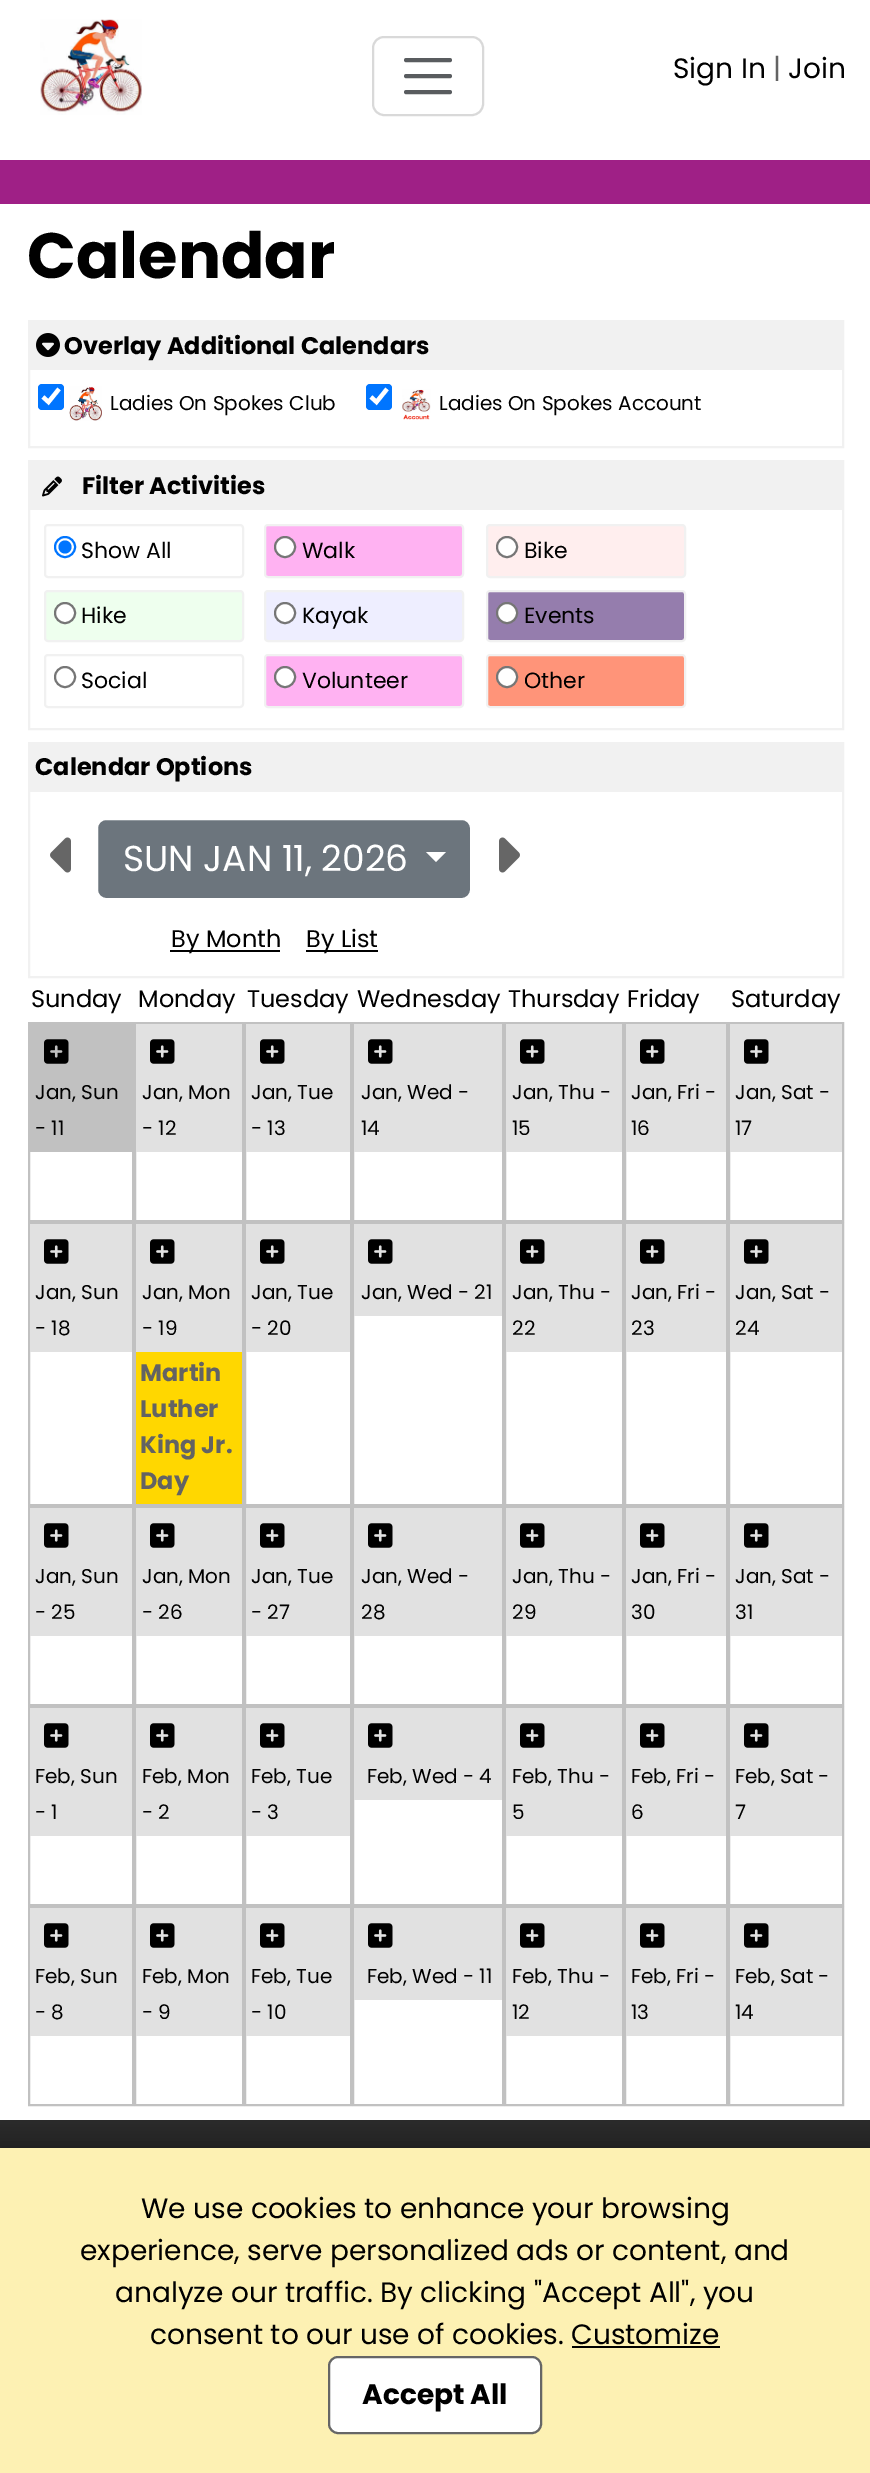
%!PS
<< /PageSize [870 2473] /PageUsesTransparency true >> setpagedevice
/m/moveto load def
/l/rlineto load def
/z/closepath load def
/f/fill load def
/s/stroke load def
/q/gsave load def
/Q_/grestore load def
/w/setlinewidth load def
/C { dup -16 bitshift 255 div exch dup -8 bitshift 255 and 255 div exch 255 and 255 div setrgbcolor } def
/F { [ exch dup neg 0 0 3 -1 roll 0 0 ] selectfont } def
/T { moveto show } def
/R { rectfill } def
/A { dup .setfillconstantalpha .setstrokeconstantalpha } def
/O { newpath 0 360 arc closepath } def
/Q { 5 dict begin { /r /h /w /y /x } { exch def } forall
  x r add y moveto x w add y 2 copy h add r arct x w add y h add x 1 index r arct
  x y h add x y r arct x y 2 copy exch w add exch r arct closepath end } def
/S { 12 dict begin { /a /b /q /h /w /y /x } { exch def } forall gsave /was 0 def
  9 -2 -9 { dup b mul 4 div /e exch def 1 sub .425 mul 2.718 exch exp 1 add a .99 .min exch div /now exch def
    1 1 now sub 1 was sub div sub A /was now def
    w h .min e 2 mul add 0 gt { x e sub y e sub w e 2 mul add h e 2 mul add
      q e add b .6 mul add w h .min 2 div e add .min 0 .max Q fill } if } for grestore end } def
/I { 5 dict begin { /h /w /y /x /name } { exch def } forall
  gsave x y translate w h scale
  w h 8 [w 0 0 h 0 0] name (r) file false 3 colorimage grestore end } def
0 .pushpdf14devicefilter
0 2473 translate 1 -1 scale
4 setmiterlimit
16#FFFFFF C
0 0 870 2473 R
16#9F2086 C
0 160 870 10 R
(1.rgb) 40 19 102 96 I
16#D9D9D9 C
2 w
373 37 110 78 11 Q s
16#595C5F C
4 w
1 setlinecap
406 60 m 44 0 l 406 76 m 44 0 l 406 92 m 44 0 l s
/Poppins-Regular 28 F
16#000000 C
(Sign In) 673 78 T
16#636363 C
(|) 773 78 T
16#000000 C
(Join) 788 78 T
16#9F2086 C
0 170 870 34 R
/Poppins-Bold 64 F
16#000000 C
(Calendar) 27 278 T
16#F1F1F1 C
2 w
0 setlinecap
29 321 814 126 rectstroke
30 322 812 48 R
(2.rgb) 36 333 24 24 I
/Poppins-Bold 24 F
16#000000 C
(Overlay Additional Calendars) 64 354 T
16#0075FF C
38 384 26 26 4 Q f
16#FFFFFF C
4.2 w
43 397 m 5.5 5 l 10.5 -13 l s
(3.rgb) 69 386 33 35 I
/Poppins-Regular 20 F
16#000000 C
(Ladies On Spokes Club) 110 410 T
16#0075FF C
366 384 26 26 4 Q f
16#FFFFFF C
371 397 m 5.5 5 l 10.5 -13 l s
(4.rgb) 402 389 29 31 I
16#000000 C
(Ladies On Spokes Account) 439 410 T
16#F1F1F1 C
2 w
29 461 814 268 rectstroke
30 462 812 48 R
(5.rgb) 42 476 20 21 I
/Poppins-Bold 24 F
16#000000 C
(Filter Activities) 82 494 T
16#F1F1F1 C
45 525 198 52 3 Q s
16#0075FF C
65 547 10 O s
65 547 6.5 O f
/Poppins-Regular 22 F
16#000000 C
(Show All) 81 558 T
16#FFB2F2 C
265 525 198 52 3 Q q f Q_
16#F1F1F1 C
s
16#FFFFFF C
285 547 10 O q f Q_
16#767676 C
s
16#000000 C
(Walk) 302 558 T
16#FFEEEE C
487 525 198 52 3 Q q f Q_
16#F1F1F1 C
s
16#FFFFFF C
507 547 10 O q f Q_
16#767676 C
s
16#000000 C
(Bike) 524 558 T
16#EEFFEE C
45 591 198 50 3 Q q f Q_
16#F1F1F1 C
s
16#FFFFFF C
65 613 10 O q f Q_
16#767676 C
s
16#000000 C
(Hike) 81 623 T
16#EEEEFF C
265 591 198 50 3 Q q f Q_
16#F1F1F1 C
s
16#FFFFFF C
285 613 10 O q f Q_
16#767676 C
s
16#000000 C
(Kayak) 302 623 T
16#957DAD C
487 591 198 50 3 Q q f Q_
16#F1F1F1 C
s
16#FFFFFF C
507 613 10 O q f Q_
16#767676 C
s
16#000000 C
(Events) 524 623 T
16#F1F1F1 C
45 655 198 52 3 Q s
16#767676 C
65 677 10 O s
16#000000 C
(Social) 81 688 T
16#FFB2F2 C
265 655 198 52 3 Q q f Q_
16#F1F1F1 C
s
16#FFFFFF C
285 677 10 O q f Q_
16#767676 C
s
16#000000 C
(Volunteer) 302 688 T
16#FF9479 C
487 655 198 52 3 Q q f Q_
16#F1F1F1 C
s
16#FFFFFF C
507 677 10 O q f Q_
16#767676 C
s
16#000000 C
(Other) 524 688 T
16#F1F1F1 C
29 743 814 234 rectstroke
30 744 812 48 R
/Poppins-Bold 24 F
16#000000 C
(Calendar Options) 35 775 T
(6.rgb) 50 837 21 36 I
16#6C757D C
96 818 376 82 10 Q q f Q_
16#FFFFFF C
4 w
s
/Poppins-Regular 36 F
(SUN JAN 11, 2026) 123 871 T
426 852 m 20 0 l -10 10 l z f
(7.rgb) 499 837 21 36 I
16#000000 C
170 950 110 2 R
/Poppins-Regular 24 F
(By Month) 171 947 T
306 950 72 2 R
(By List) 306 947 T
(Sunday) 31 1007 T
(Monday) 138 1007 T
(Tuesday) 247 1007 T
(Wednesday) 357 1007 T
(Thursday) 508 1007 T
(Friday) 627 1007 T
(Saturday) 731 1007 T
16#C1C1C1 C
2 w
29 1023 104 198 rectstroke
30 1024 102 128 R
(8.rgb) 44 1039 25 25 I
/Poppins-Regular 20 F
16#000000 C
(Jan, Sun) 35 1099 T
(- 11) 35 1135 T
16#C1C1C1 C
135 1023 108 198 rectstroke
16#E1E1E1 C
136 1024 106 128 R
(9.rgb) 150 1039 25 25 I
16#000000 C
(Jan, Mon) 142 1099 T
(- 12) 142 1135 T
16#C1C1C1 C
245 1023 106 198 rectstroke
16#E1E1E1 C
246 1024 104 128 R
(9.rgb) 260 1039 25 25 I
16#000000 C
(Jan, Tue) 251 1099 T
(- 13) 251 1135 T
16#C1C1C1 C
353 1023 150 198 rectstroke
16#E1E1E1 C
354 1024 148 128 R
(9.rgb) 368 1039 25 25 I
16#000000 C
(Jan, Wed -) 361 1099 T
(14) 361 1135 T
16#C1C1C1 C
505 1023 118 198 rectstroke
16#E1E1E1 C
506 1024 116 128 R
(9.rgb) 520 1039 25 25 I
16#000000 C
(Jan, Thu -) 512 1099 T
(15) 512 1135 T
16#C1C1C1 C
625 1023 102 198 rectstroke
16#E1E1E1 C
626 1024 100 128 R
(9.rgb) 640 1039 25 25 I
16#000000 C
(Jan, Fri -) 631 1099 T
(16) 631 1135 T
16#C1C1C1 C
729 1023 114 198 rectstroke
16#E1E1E1 C
730 1024 112 128 R
(9.rgb) 744 1039 25 25 I
16#000000 C
(Jan, Sat -) 735 1099 T
(17) 735 1135 T
16#C1C1C1 C
29 1223 104 282 rectstroke
16#E1E1E1 C
30 1224 102 128 R
(9.rgb) 44 1239 25 25 I
16#000000 C
(Jan, Sun) 35 1299 T
(- 18) 35 1335 T
16#C1C1C1 C
135 1223 108 282 rectstroke
16#E1E1E1 C
136 1224 106 128 R
(9.rgb) 150 1239 25 25 I
16#000000 C
(Jan, Mon) 142 1299 T
(- 19) 142 1335 T
16#FFD700 C
136 1352 106 152 R
/Poppins-Bold 24 F
16#636363 C
(Martin) 140 1381 T
(Luther) 140 1417 T
(King Jr.) 140 1453 T
(Day) 140 1489 T
16#C1C1C1 C
245 1223 106 282 rectstroke
16#E1E1E1 C
246 1224 104 128 R
(9.rgb) 260 1239 25 25 I
/Poppins-Regular 20 F
16#000000 C
(Jan, Tue) 251 1299 T
(- 20) 251 1335 T
16#C1C1C1 C
353 1223 150 282 rectstroke
16#E1E1E1 C
354 1224 148 92 R
(9.rgb) 368 1239 25 25 I
16#000000 C
(Jan, Wed - 21) 361 1299 T
16#C1C1C1 C
505 1223 118 282 rectstroke
16#E1E1E1 C
506 1224 116 128 R
(9.rgb) 520 1239 25 25 I
16#000000 C
(Jan, Thu -) 512 1299 T
(22) 512 1335 T
16#C1C1C1 C
625 1223 102 282 rectstroke
16#E1E1E1 C
626 1224 100 128 R
(9.rgb) 640 1239 25 25 I
16#000000 C
(Jan, Fri -) 631 1299 T
(23) 631 1335 T
16#C1C1C1 C
729 1223 114 282 rectstroke
16#E1E1E1 C
730 1224 112 128 R
(9.rgb) 744 1239 25 25 I
16#000000 C
(Jan, Sat -) 735 1299 T
(24) 735 1335 T
16#C1C1C1 C
29 1507 104 198 rectstroke
16#E1E1E1 C
30 1508 102 128 R
(9.rgb) 44 1523 25 25 I
16#000000 C
(Jan, Sun) 35 1583 T
(- 25) 35 1619 T
16#C1C1C1 C
135 1507 108 198 rectstroke
16#E1E1E1 C
136 1508 106 128 R
(9.rgb) 150 1523 25 25 I
16#000000 C
(Jan, Mon) 142 1583 T
(- 26) 142 1619 T
16#C1C1C1 C
245 1507 106 198 rectstroke
16#E1E1E1 C
246 1508 104 128 R
(9.rgb) 260 1523 25 25 I
16#000000 C
(Jan, Tue) 251 1583 T
(- 27) 251 1619 T
16#C1C1C1 C
353 1507 150 198 rectstroke
16#E1E1E1 C
354 1508 148 128 R
(9.rgb) 368 1523 25 25 I
16#000000 C
(Jan, Wed -) 361 1583 T
(28) 361 1619 T
16#C1C1C1 C
505 1507 118 198 rectstroke
16#E1E1E1 C
506 1508 116 128 R
(9.rgb) 520 1523 25 25 I
16#000000 C
(Jan, Thu -) 512 1583 T
(29) 512 1619 T
16#C1C1C1 C
625 1507 102 198 rectstroke
16#E1E1E1 C
626 1508 100 128 R
(9.rgb) 640 1523 25 25 I
16#000000 C
(Jan, Fri -) 631 1583 T
(30) 631 1619 T
16#C1C1C1 C
729 1507 114 198 rectstroke
16#E1E1E1 C
730 1508 112 128 R
(9.rgb) 744 1523 25 25 I
16#000000 C
(Jan, Sat -) 735 1583 T
(31) 735 1619 T
16#C1C1C1 C
29 1707 104 198 rectstroke
16#E1E1E1 C
30 1708 102 128 R
(9.rgb) 44 1723 25 25 I
16#000000 C
(Feb, Sun) 35 1783 T
(- 1) 35 1819 T
16#C1C1C1 C
135 1707 108 198 rectstroke
16#E1E1E1 C
136 1708 106 128 R
(9.rgb) 150 1723 25 25 I
16#000000 C
(Feb, Mon) 142 1783 T
(- 2) 142 1819 T
16#C1C1C1 C
245 1707 106 198 rectstroke
16#E1E1E1 C
246 1708 104 128 R
(9.rgb) 260 1723 25 25 I
16#000000 C
(Feb, Tue) 251 1783 T
(- 3) 251 1819 T
16#C1C1C1 C
353 1707 150 198 rectstroke
16#E1E1E1 C
354 1708 148 92 R
(9.rgb) 368 1723 25 25 I
16#000000 C
(Feb, Wed - 4) 367 1783 T
16#C1C1C1 C
505 1707 118 198 rectstroke
16#E1E1E1 C
506 1708 116 128 R
(9.rgb) 520 1723 25 25 I
16#000000 C
(Feb, Thu -) 512 1783 T
(5) 512 1819 T
16#C1C1C1 C
625 1707 102 198 rectstroke
16#E1E1E1 C
626 1708 100 128 R
(9.rgb) 640 1723 25 25 I
16#000000 C
(Feb, Fri -) 631 1783 T
(6) 631 1819 T
16#C1C1C1 C
729 1707 114 198 rectstroke
16#E1E1E1 C
730 1708 112 128 R
(9.rgb) 744 1723 25 25 I
16#000000 C
(Feb, Sat -) 735 1783 T
(7) 735 1819 T
16#C1C1C1 C
29 1907 104 198 rectstroke
16#E1E1E1 C
30 1908 102 128 R
(9.rgb) 44 1923 25 25 I
16#000000 C
(Feb, Sun) 35 1983 T
(- 8) 35 2019 T
16#C1C1C1 C
135 1907 108 198 rectstroke
16#E1E1E1 C
136 1908 106 128 R
(9.rgb) 150 1923 25 25 I
16#000000 C
(Feb, Mon) 142 1983 T
(- 9) 142 2019 T
16#C1C1C1 C
245 1907 106 198 rectstroke
16#E1E1E1 C
246 1908 104 128 R
(9.rgb) 260 1923 25 25 I
16#000000 C
(Feb, Tue) 251 1983 T
(- 10) 251 2019 T
16#C1C1C1 C
353 1907 150 198 rectstroke
16#E1E1E1 C
354 1908 148 92 R
(9.rgb) 368 1923 25 25 I
16#000000 C
(Feb, Wed - 11) 367 1983 T
16#C1C1C1 C
505 1907 118 198 rectstroke
16#E1E1E1 C
506 1908 116 128 R
(9.rgb) 520 1923 25 25 I
16#000000 C
(Feb, Thu -) 512 1983 T
(12) 512 2019 T
16#C1C1C1 C
625 1907 102 198 rectstroke
16#E1E1E1 C
626 1908 100 128 R
(9.rgb) 640 1923 25 25 I
16#000000 C
(Feb, Fri -) 631 1983 T
(13) 631 2019 T
16#C1C1C1 C
729 1907 114 198 rectstroke
16#E1E1E1 C
730 1908 112 128 R
(9.rgb) 744 1923 25 25 I
16#000000 C
(Feb, Sat -) 735 1983 T
(14) 735 2019 T
q 0 2120 m 870 0 l 0 28 l -870 0 l z clip newpath
<< /ShadingType 2 /ColorSpace /DeviceRGB /Coords [435 2120 435 2422] /Extend [true true] /Function << /FunctionType 3 /Domain [0 1] /Functions [<< /FunctionType 2 /Domain [0 1] /C0 [.169 .169 .169] /C1 [0 0 0] /N 1 >> << /FunctionType 2 /Domain [0 1] /C0 [0 0 0] /C1 [0 0 0] /N 1 >>] /Bounds [.5] /Encode [0 1 0 1] >> >> shfill Q_
0 2148 870 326 0 10 .1 S
16#FDF1B3 C
0 2148 870 325 R
/Poppins-Regular 28 F
16#000000 C
(We use cookies to enhance your browsing) 141 2218 T
(experience, serve personalized ads or content, and) 80 2260 T
(analyze our traffic. By clicking "Accept All", you) 115 2302 T
(consent to our use of cookies. Customize) 150 2344 T
572 2346 148 2 R
16#FFFFFF C
329 2357 212 76 9 Q q f Q_
16#666666 C
s
/Poppins-Bold 28 F
16#000000 C
(Accept All) 362 2404 T
.poppdf14devicefilter showpage
